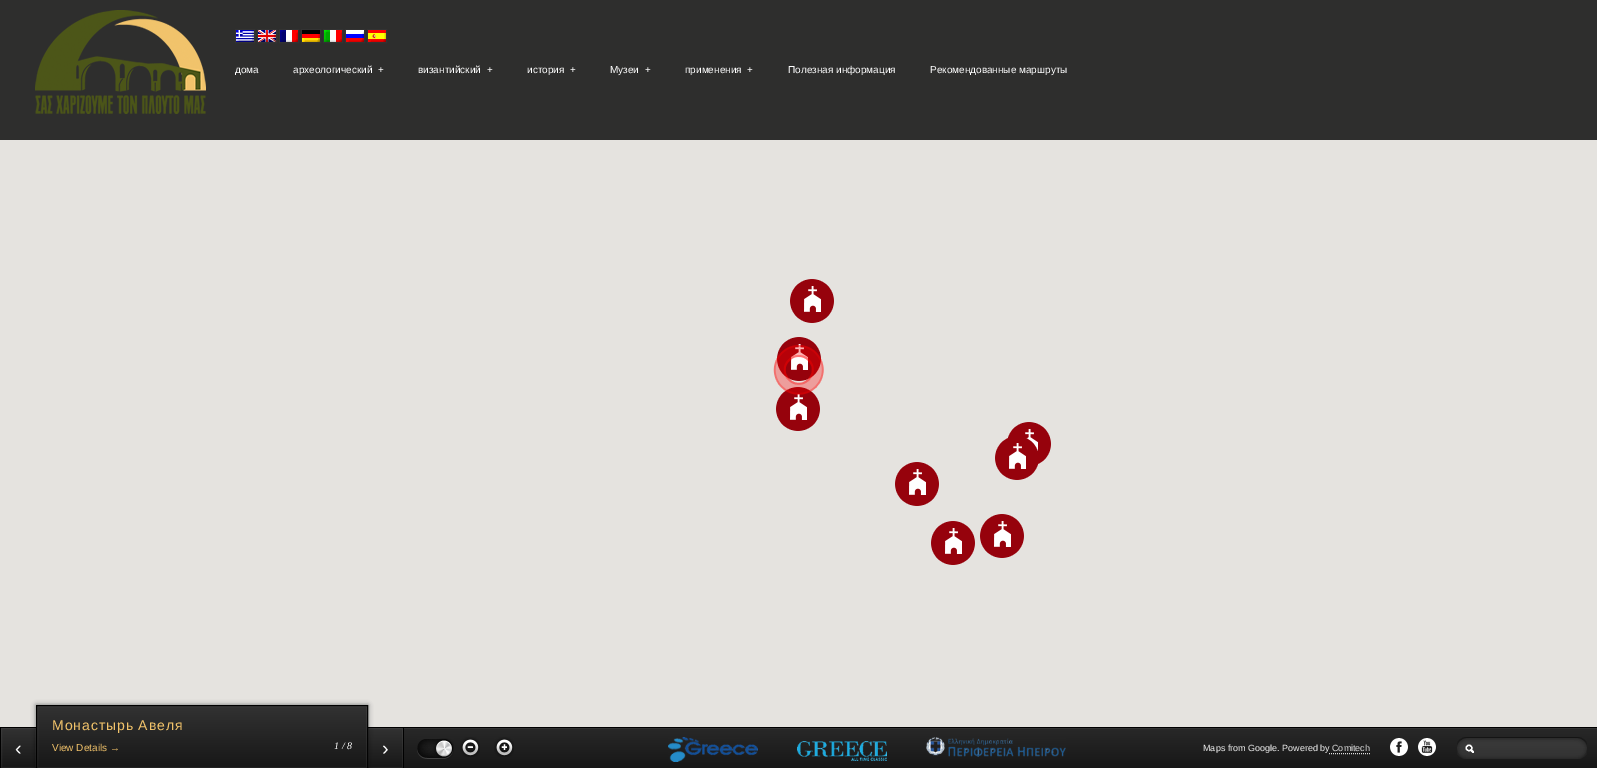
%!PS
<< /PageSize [1597 768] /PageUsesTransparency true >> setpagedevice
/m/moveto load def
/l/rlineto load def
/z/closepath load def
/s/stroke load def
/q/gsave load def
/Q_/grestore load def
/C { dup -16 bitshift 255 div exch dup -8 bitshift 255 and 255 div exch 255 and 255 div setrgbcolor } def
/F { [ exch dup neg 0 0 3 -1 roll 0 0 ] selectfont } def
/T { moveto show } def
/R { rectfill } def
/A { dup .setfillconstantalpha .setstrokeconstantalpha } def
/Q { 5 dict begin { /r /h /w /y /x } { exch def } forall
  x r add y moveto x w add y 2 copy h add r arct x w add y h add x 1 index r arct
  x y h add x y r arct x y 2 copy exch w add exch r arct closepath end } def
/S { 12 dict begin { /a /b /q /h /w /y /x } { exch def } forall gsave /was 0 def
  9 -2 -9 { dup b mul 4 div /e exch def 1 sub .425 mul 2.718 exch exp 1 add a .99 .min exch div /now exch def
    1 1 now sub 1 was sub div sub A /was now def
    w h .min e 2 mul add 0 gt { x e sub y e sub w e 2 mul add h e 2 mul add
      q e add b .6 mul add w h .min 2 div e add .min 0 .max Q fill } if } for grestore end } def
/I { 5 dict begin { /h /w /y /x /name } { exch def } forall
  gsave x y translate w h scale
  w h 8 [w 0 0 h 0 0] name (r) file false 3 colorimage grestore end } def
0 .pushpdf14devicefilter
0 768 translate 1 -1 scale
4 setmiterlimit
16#E5E3DF C
0 0 1597 768 R
16#2E2E2D C
0 0 1597 140 R
16#333333 C
235.5 29.5 19 13 rectstroke
257.5 29.5 19 13 rectstroke
279.5 29.5 19 13 rectstroke
301.5 29.5 19 13 rectstroke
323.5 29.5 19 13 rectstroke
345.5 29.5 19 13 rectstroke
367.5 29.5 19 13 rectstroke
(1.rgb) 236 30 18 12 I
(2.rgb) 258 30 18 12 I
(3.rgb) 280 30 18 12 I
(4.rgb) 302 30 18 12 I
(5.rgb) 324 30 18 12 I
(6.rgb) 346 30 18 12 I
(7.rgb) 368 30 18 12 I
(8.rgb) 35 10 171 104 I
/LiberationSans-Regular 10 F
16#FFFFFF C
(дома) 235 73 T
(археологический) 293 73 T
(+) 378 73 T
(византийский) 418 73 T
(+) 487 73 T
(история) 527 73 T
(+) 570 73 T
(Музеи) 610 73 T
(+) 645 73 T
(применения) 685 73 T
(+) 747 73 T
(Полезная информация) 788 73 T
(Рекомендованные маршруты) 930 73 T
(9.rgb) 790 279 44 44 I
(9.rgb) 777 337 44 44 I
(9.rgb) 776 387 44 44 I
(10.rgb) 1007 422 44 42 I
(9.rgb) 895 462 44 44 I
(11.rgb) 995 438 44 42 I
(9.rgb) 931 521 44 44 I
(9.rgb) 980 514 44 44 I
(12.rgb) 773 344 51 51 I
q 404 729 m 1193 0 l 0 39 l -1193 0 l z clip newpath
<< /ShadingType 2 /ColorSpace /DeviceRGB /Coords [0 728 0 768] /Extend [true true] /Function << /FunctionType 2 /Domain [0 1] /C0 [.157 .157 .157] /C1 [.09 .09 .09] /N 1 >> >> shfill Q_
16#000000 C
0 727 1597 1 R
q 1 728 m 35 0 l 0 40 l -35 0 l z clip newpath
<< /ShadingType 2 /ColorSpace /DeviceRGB /Coords [1 728 1 768] /Extend [true true] /Function << /FunctionType 2 /Domain [0 1] /C0 [.196 .196 .196] /C1 [.09 .09 .09] /N 1 >> >> shfill Q_
0.05 A
16#FFFFFF C
1.5 728.5 34 39 rectstroke
1 A
q 368 728 m 35 0 l 0 40 l -35 0 l z clip newpath
<< /ShadingType 2 /ColorSpace /DeviceRGB /Coords [368 728 368 768] /Extend [true true] /Function << /FunctionType 2 /Domain [0 1] /C0 [.196 .196 .196] /C1 [.09 .09 .09] /N 1 >> >> shfill Q_
0.05 A
368.5 728.5 34 39 rectstroke
1 A
16#000000 C
36 705 332 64 0 2.5 .5 S
q 37 706 m 330 0 l 0 62 l -330 0 l z clip newpath
<< /ShadingType 2 /ColorSpace /DeviceRGB /Coords [37 706 37 768] /Extend [true true] /Function << /FunctionType 2 /Domain [0 1] /C0 [.196 .196 .196] /C1 [.09 .09 .09] /N 1 >> >> shfill Q_
36.5 705.5 331 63 rectstroke
0.05 A
16#FFFFFF C
37.5 706.5 329 61 rectstroke
/LiberationSans-Regular 14 F
1 A
16#F2C36A C
52 730 m -1 0 32 1 0 (Монастырь Авеля) awidthshow
/LiberationSans-Regular 10 F
(View Details →) 52 751 T
/LiberationSerif-Italic 10 F
16#FFFFFF C
(1 / 8) 334 749 T
16#333333 C
404 728 1193 1 R
16#000000 C
0 728 1 40 R
/LiberationSans-Regular 20 F
16#FFFFFF C
(‹) 15 755 T
16#000000 C
403 728 1 40 R
16#FFFFFF C
(›) 382 755 T
(13.rgb) 417 738 37 21 I
(14.rgb) 460 737 20 20 I
(15.rgb) 494 737 20 20 I
(16.rgb) 668 737 90 25 I
(17.rgb) 797 741 90 20 I
(18.rgb) 926 737 140 20 I
/LiberationSans-Regular 9 F
16#EEEEEE C
(Maps from Google. Powered by) 1203 751 T
16#DDDDDD C
(Comitech) 1332 751 T
[1 1] 0 setdash
1329 753.5 m 41 0 l s
(19.rgb) 1390 738 18 18 I
(20.rgb) 1418 738 18 18 I
(21.rgb) 1457 737 130 22 I
(22.rgb) 1465 744 9 9 I
.poppdf14devicefilter showpage
